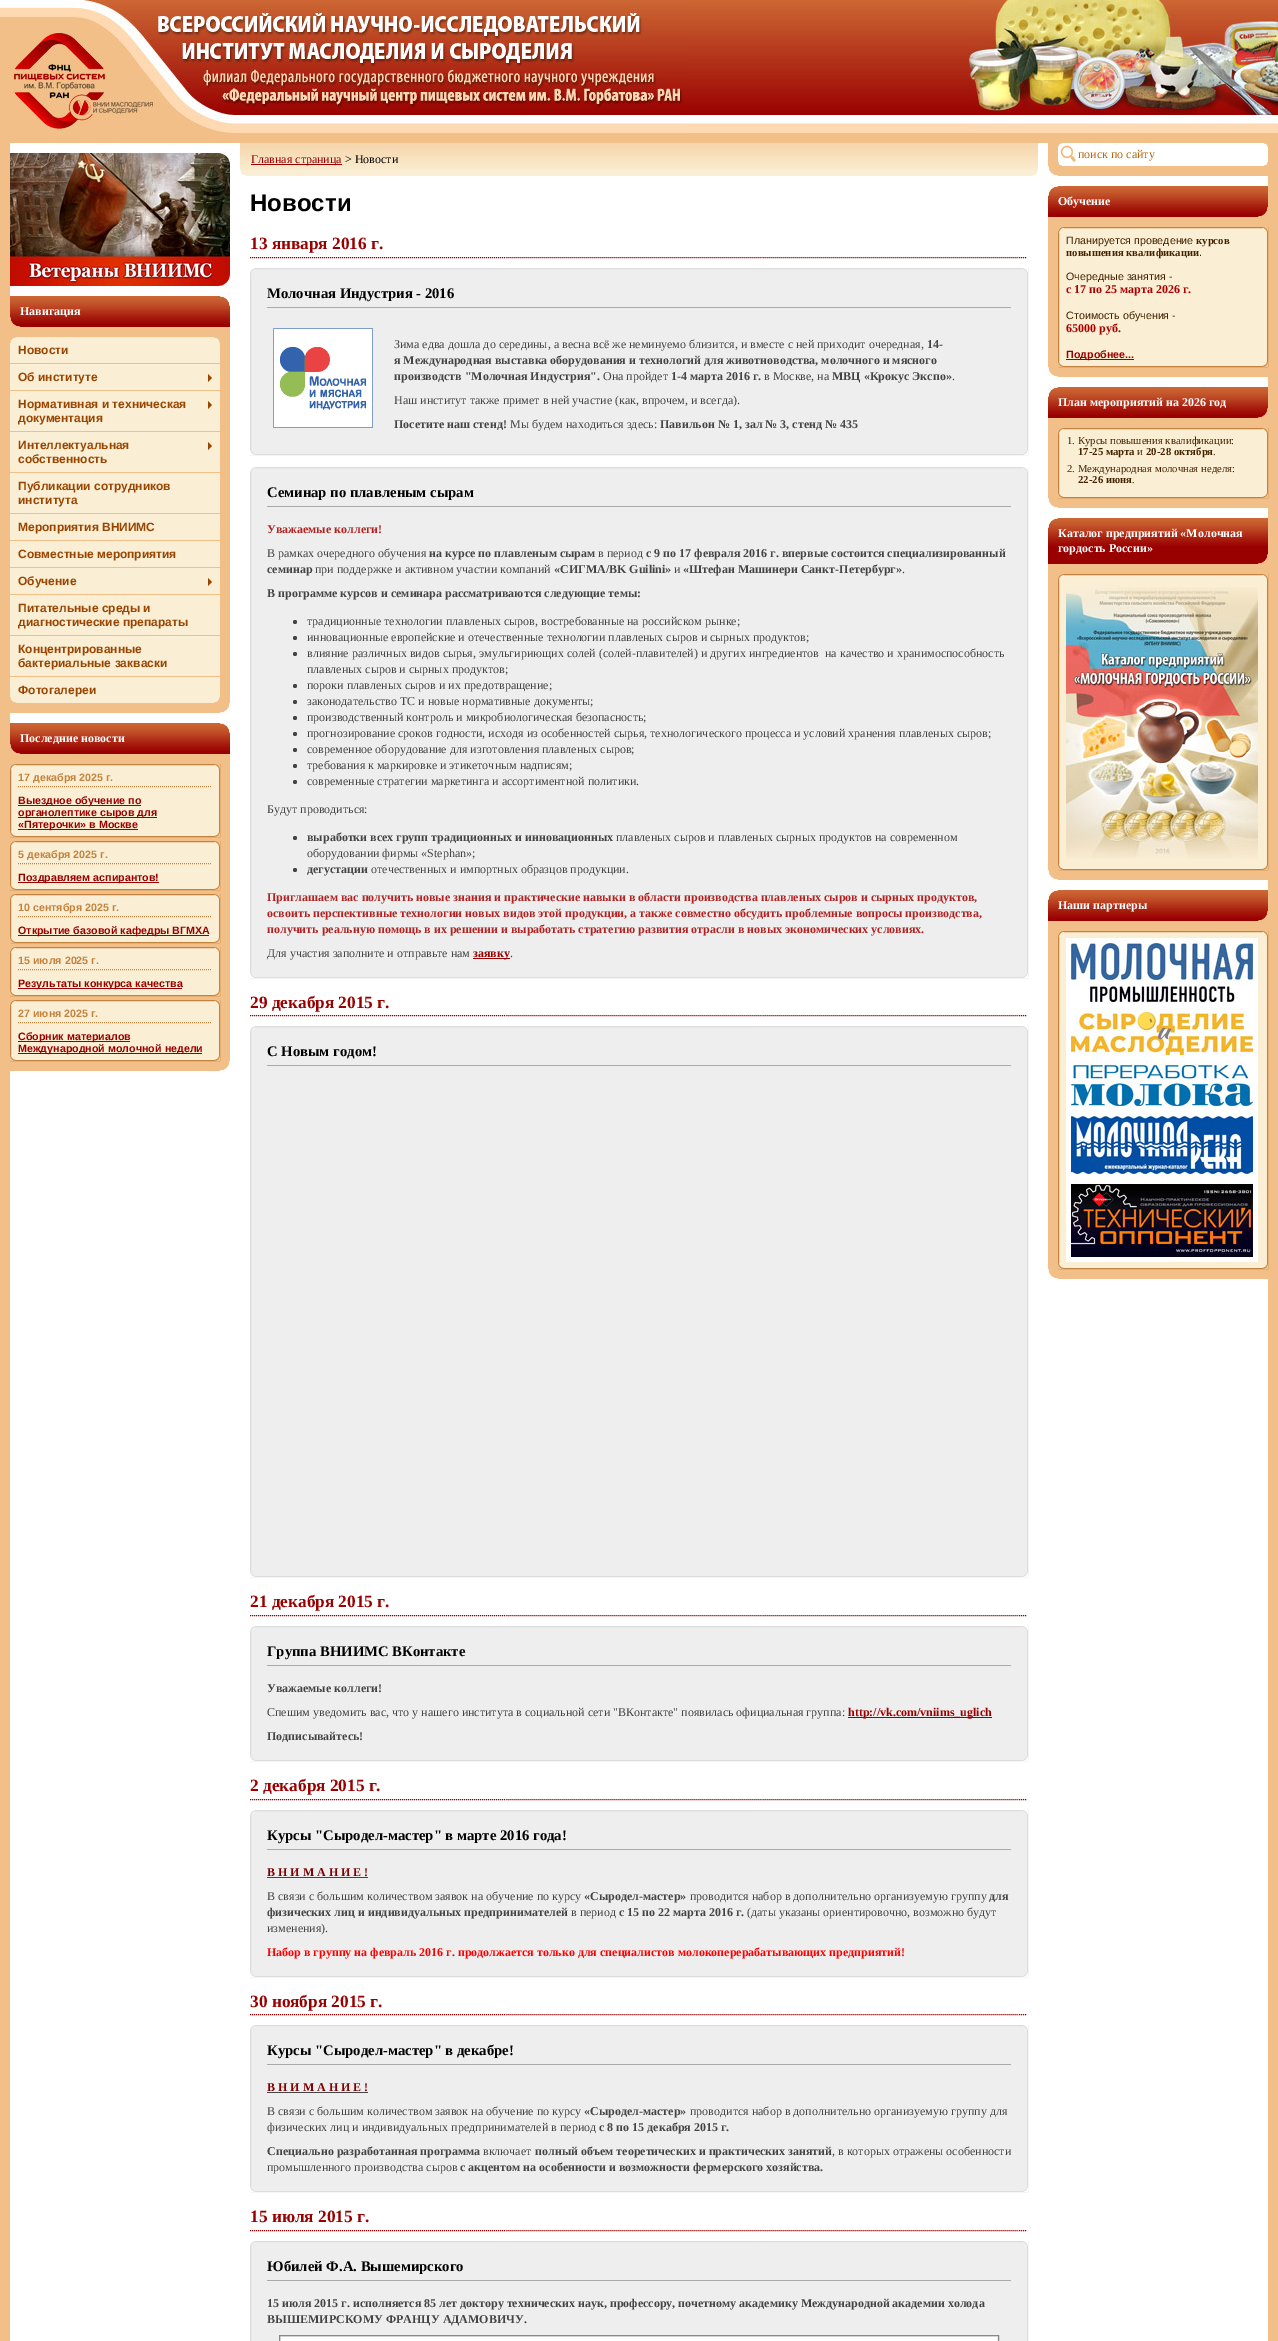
%!PS
<< /PageSize [1278 2341] >> setpagedevice
/m/moveto load def
/l/rlineto load def
/z/closepath load def
/f/fill load def
/s/stroke load def
/q/gsave load def
/Q_/grestore load def
/C { dup -16 bitshift 255 div exch dup -8 bitshift 255 and 255 div exch 255 and 255 div setrgbcolor } def
/F { [ exch dup neg 0 0 3 -1 roll 0 0 ] selectfont } def
/T { moveto show } def
/R { rectfill } def
/O { newpath 0 360 arc closepath } def
/I { 5 dict begin { /h /w /y /x /name } { exch def } forall
  gsave x y translate w h scale
  w h 8 [w 0 0 h 0 0] name (r) file false 3 colorimage grestore end } def
0 2341 translate 1 -1 scale
4 setmiterlimit
16#F2BF88 C
0 0 1278 2341 R
(1.rgb) 688 0 281 133 I
(2.rgb) 969 0 309 134 I
(3.rgb) 0 0 688 136 I
16#FFFFFF C
10 143 1258 2198 R
(4.rgb) 10 153 220 133 I
16#990000 C
13 324 217 3 R
(5.rgb) 10 296 220 28 I
(6.rgb) 220 296 10 10 I
/LiberationSerif-Bold 12 F
16#FFFFFF C
(Навигация) 20 315 T
(7.rgb) 10 317 10 10 I
16#F2BF88 C
10 327 220 386 R
16#FAEFD4 C
10 337 210 26 R
(8.rgb) 10 337 6 6 I
(9.rgb) 214 337 6 6 I
10 677 210 26 R
(10.rgb) 10 697 6 6 I
(11.rgb) 214 697 6 6 I
/LiberationSans-Bold 12 F
16#994400 C
(Новости) 18 354 T
16#FAEFD4 C
10 364 210 26 R
16#994400 C
(Об институте) 18 381 T
208 382 m 0 -8 l 4 4 l z f
16#FAEFD4 C
10 391 210 40 R
16#994400 C
(Нормативная и техническая) 18 408 T
208 409 m 0 -8 l 4 4 l z f
(документация) 18 422 T
16#FAEFD4 C
10 432 210 40 R
16#994400 C
(Интеллектуальная) 18 449 T
208 450 m 0 -8 l 4 4 l z f
(собственность) 18 463 T
16#FAEFD4 C
10 473 210 40 R
16#994400 C
(Публикации сотрудников) 18 490 T
(института) 18 504 T
16#FAEFD4 C
10 514 210 26 R
16#994400 C
(Мероприятия ВНИИМС) 18 531 T
16#FAEFD4 C
10 541 210 26 R
16#994400 C
(Совместные мероприятия) 18 558 T
16#FAEFD4 C
10 568 210 26 R
16#994400 C
(Обучение) 18 585 T
208 586 m 0 -8 l 4 4 l z f
16#FAEFD4 C
10 595 210 40 R
16#994400 C
(Питательные среды и) 18 612 T
(диагностические препараты) 18 626 T
16#FAEFD4 C
10 636 210 40 R
16#994400 C
(Концентрированные) 18 653 T
(бактериальные закваски) 18 667 T
(Фотогалереи) 18 694 T
(12.rgb) 220 703 10 10 I
16#990000 C
13 751 217 3 R
(5.rgb) 10 723 220 28 I
(6.rgb) 220 723 10 10 I
/LiberationSerif-Bold 12 F
16#FFFFFF C
(Последние новости) 20 742 T
(7.rgb) 10 744 10 10 I
16#F2BF88 C
10 754 220 317 R
16#FAEFD4 C
10.5 764.5 m 209 0 l 0 72 l -209 0 l z q f Q_
16#C3833E C
s
(13.rgb) 10 764 6 6 I
(14.rgb) 214 764 6 6 I
(15.rgb) 10 831 6 6 I
(16.rgb) 214 831 6 6 I
[1 1] 0 setdash
18 786.5 m 194 0 l s
/LiberationSans-Bold 10.7 F
(17 декабря 2025 г.) 18 781 T
16#990000 C
18 805 123 1 R
(Выездное обучение по) 18 804 T
18 817 139 1 R
(органолептике сыров для) 18 816 T
18 829 120 1 R
(«Пятерочки» в Москве) 18 828 T
16#FAEFD4 C
10.5 841.5 m 209 0 l 0 48 l -209 0 l z q f Q_
16#C3833E C
[] 0 setdash
s
(13.rgb) 10 841 6 6 I
(14.rgb) 214 841 6 6 I
(15.rgb) 10 884 6 6 I
(16.rgb) 214 884 6 6 I
[1 1] 0 setdash
18 863.5 m 194 0 l s
(5 декабря 2025 г.) 18 858 T
16#990000 C
18 882 141 1 R
(Поздравляем аспирантов!) 18 881 T
16#FAEFD4 C
10.5 894.5 m 209 0 l 0 48 l -209 0 l z q f Q_
16#C3833E C
[] 0 setdash
s
(13.rgb) 10 894 6 6 I
(14.rgb) 214 894 6 6 I
(15.rgb) 10 937 6 6 I
(16.rgb) 214 937 6 6 I
[1 1] 0 setdash
18 916.5 m 194 0 l s
(10 сентября 2025 г.) 18 911 T
16#990000 C
18 935 191 1 R
(Открытие базовой кафедры ВГМХА) 18 934 T
16#FAEFD4 C
10.5 947.5 m 209 0 l 0 48 l -209 0 l z q f Q_
16#C3833E C
[] 0 setdash
s
(13.rgb) 10 947 6 6 I
(14.rgb) 214 947 6 6 I
(15.rgb) 10 990 6 6 I
(16.rgb) 214 990 6 6 I
[1 1] 0 setdash
18 969.5 m 194 0 l s
(15 июля 2025 г.) 18 964 T
16#990000 C
18 988 164 1 R
(Результаты конкурса качества) 18 987 T
16#FAEFD4 C
10.5 1000.5 m 209 0 l 0 60 l -209 0 l z q f Q_
16#C3833E C
[] 0 setdash
s
(13.rgb) 10 1000 6 6 I
(14.rgb) 214 1000 6 6 I
(15.rgb) 10 1055 6 6 I
(16.rgb) 214 1055 6 6 I
[1 1] 0 setdash
18 1022.5 m 194 0 l s
(27 июня 2025 г.) 18 1017 T
16#990000 C
18 1041 112 1 R
(Сборник материалов) 18 1040 T
18 1053 184 1 R
(Международной молочной недели) 18 1052 T
(12.rgb) 220 1061 10 10 I
16#FAEFD4 C
240 170 798 6 R
(17.rgb) 240 143 798 27 I
16#990000 C
251 164 91 1 R
/LiberationSerif-Regular 12 F
(Главная страница) 251 163 T
16#000000 C
(> Новости) 345 163 T
(18.rgb) 240 170 6 6 I
(19.rgb) 1032 170 6 6 I
/LiberationSans-Bold 24 F
(Новости) 250 211 T
16#990000 C
250 257.5 m 778 0 l s
/LiberationSerif-Bold 17.25 F
(13 января 2016 г.) 250 249 T
16#EEEEEE C
250.5 268.5 m 777 0 l 0 186 l -777 0 l z q f Q_
16#DDDDDD C
[] 0 setdash
s
(20.rgb) 250 268 5 5 I
(21.rgb) 1023 268 5 5 I
(22.rgb) 250 450 5 5 I
(23.rgb) 1023 450 5 5 I
16#AAAAAA C
267 307 744 1 R
/LiberationSerif-Bold 14.7 F
16#000000 C
(Молочная Индустрия - 2016) 267 298 T
(24.rgb) 273 328 100 100 I
/LiberationSerif-Regular 12 F
16#444444 C
(Зима едва дошла до середины, а весна всё же неминуемо близится, и вместе с ней приходит очередная,) 394 348 T
/LiberationSerif-Bold 12 F
(14-) 927 348 T
(я Международная выставка оборудования и технологий для животноводства, молочного и мясного) 394 364 T
(производств "Молочная Индустрия".) 394 380 T
/LiberationSerif-Regular 12 F
(Она пройдет) 603 380 T
/LiberationSerif-Bold 12 F
(1-4 марта 2016 г.) 671 380 T
/LiberationSerif-Regular 12 F
(в Москве, на) 764 380 T
/LiberationSerif-Bold 12 F
(МВЦ «Крокус Экспо») 832 380 T
/LiberationSerif-Regular 12 F
(.) 952 380 T
(Наш институт также примет в ней участие \(как, впрочем, и всегда\).) 394 404 T
/LiberationSerif-Bold 12 F
(Посетите наш стенд!) 394 428 T
/LiberationSerif-Regular 12 F
(Мы будем находиться здесь:) 510 428 T
/LiberationSerif-Bold 12 F
(Павильон № 1, зал № 3, стенд № 435) 660 428 T
16#EEEEEE C
250.5 467.5 m 777 0 l 0 510 l -777 0 l z q f Q_
16#DDDDDD C
s
(20.rgb) 250 467 5 5 I
(21.rgb) 1023 467 5 5 I
(22.rgb) 250 973 5 5 I
(23.rgb) 1023 973 5 5 I
16#AAAAAA C
267 506 744 1 R
/LiberationSerif-Bold 14.7 F
16#000000 C
(Семинар по плавленым сырам) 267 497 T
/LiberationSerif-Bold 12 F
16#B22222 C
(Уважаемые коллеги!) 267 533 T
/LiberationSerif-Regular 12 F
16#444444 C
(В рамках очередного обучения) 267 557 T
/LiberationSerif-Bold 12 F
(на курсе по плавленым сырам) 429 557 T
/LiberationSerif-Regular 12 F
(в период) 598 557 T
/LiberationSerif-Bold 12 F
(с 9 по 17 февраля 2016 г. впервые состоится специализированный) 646 557 T
(семинар) 267 573 T
/LiberationSerif-Regular 12 F
(при поддержке и активном участии компаний) 315 573 T
/LiberationSerif-Bold 12 F
(«СИГМА/BK Guilini») 554 573 T
/LiberationSerif-Regular 12 F
(и) 674 573 T
/LiberationSerif-Bold 12 F
(«Штефан Машинери Санкт-Петербург») 683 573 T
/LiberationSerif-Regular 12 F
(.) 902 573 T
/LiberationSerif-Bold 12 F
(В программе курсов и семинара рассматриваются следующие темы:) 267 597 T
295 622 2 O f
/LiberationSerif-Regular 12 F
(традиционные технологии плавленых сыров, востребованные на российском рынке;) 307 625 T
295 638 2 O f
(инновационные европейские и отечественные технологии плавленых сыров и сырных продуктов;) 307 641 T
295 654 2 O f
(влияние различных видов сырья, эмульгириющих солей \(солей-плавителей\) и других ингредиентов  на качество и хранимоспособность) 307 657 T
(плавленых сыров и сырных продуктов;) 307 673 T
295 686 2 O f
(пороки плавленых сыров и их предотвращение;) 307 689 T
295 702 2 O f
(законодательство ТС и новые нормативные документы;) 307 705 T
295 718 2 O f
(производственный контроль и микробиологическая безопасность;) 307 721 T
295 734 2 O f
(прогнозирование сроков годности, исходя из особенностей сырья, технологического процесса и условий хранения плавленых сыров;) 307 737 T
295 750 2 O f
(современное оборудование для изготовления плавленых сыров;) 307 753 T
295 766 2 O f
(требования к маркировке и этикеточным надписям;) 307 769 T
295 782 2 O f
(современные стратегии маркетинга и ассортиментной политики.) 307 785 T
(Будут проводиться:) 267 813 T
295 838 2 O f
/LiberationSerif-Bold 12 F
(выработки всех групп традиционных и инновационных) 307 841 T
/LiberationSerif-Regular 12 F
(плавленых сыров и плавленых сырных продуктов на современном) 616 841 T
(оборудовании фирмы «Stephan»;) 307 857 T
295 870 2 O f
/LiberationSerif-Bold 12 F
(дегустации) 307 873 T
/LiberationSerif-Regular 12 F
(отечественных и импортных образцов продукции.) 371 873 T
/LiberationSerif-Bold 12 F
16#B22222 C
(Приглашаем вас получить новые знания и практические навыки в области производства плавленых сыров и сырных продуктов,) 267 901 T
(освоить перспективные технологии новых видов этой продукции, а также совместно обсудить проблемные вопросы производства,) 267 917 T
(получить реальную помощь в их решении и выработать стратегию развития отрасли в новых экономических условиях.) 267 933 T
/LiberationSerif-Regular 12 F
16#444444 C
(Для участия заполните и отправьте нам) 267 957 T
16#990000 C
473 958 37 1 R
/LiberationSerif-Bold 12 F
(заявку) 473 957 T
/LiberationSerif-Regular 12 F
16#444444 C
(.) 510 957 T
16#990000 C
[1 1] 0 setdash
250 1015.5 m 778 0 l s
/LiberationSerif-Bold 17.25 F
(29 декабря 2015 г.) 250 1008 T
16#EEEEEE C
250.5 1026.5 m 777 0 l 0 550 l -777 0 l z q f Q_
16#DDDDDD C
[] 0 setdash
s
(20.rgb) 250 1026 5 5 I
(21.rgb) 1023 1026 5 5 I
(22.rgb) 250 1572 5 5 I
(23.rgb) 1023 1572 5 5 I
16#AAAAAA C
267 1065 744 1 R
/LiberationSerif-Bold 14.7 F
16#000000 C
(С Новым годом!) 267 1056 T
16#990000 C
[1 1] 0 setdash
250 1615.5 m 778 0 l s
/LiberationSerif-Bold 17.25 F
(21 декабря 2015 г.) 250 1607 T
16#EEEEEE C
250.5 1626.5 m 777 0 l 0 134 l -777 0 l z q f Q_
16#DDDDDD C
[] 0 setdash
s
(20.rgb) 250 1626 5 5 I
(21.rgb) 1023 1626 5 5 I
(22.rgb) 250 1756 5 5 I
(23.rgb) 1023 1756 5 5 I
16#AAAAAA C
267 1665 744 1 R
/LiberationSerif-Bold 14.7 F
16#000000 C
(Группа ВНИИМС ВКонтакте) 267 1656 T
/LiberationSerif-Bold 12 F
16#444444 C
(Уважаемые коллеги!) 267 1692 T
/LiberationSerif-Regular 12 F
(Спешим уведомить вас, что у нашего института в социальной сети "ВКонтакте" появилась официальная группа:) 267 1716 T
16#990000 C
848 1717 144 1 R
/LiberationSerif-Bold 12 F
(http://vk.com/vniims_uglich) 848 1716 T
16#444444 C
(Подписывайтесь!) 267 1740 T
16#990000 C
[1 1] 0 setdash
250 1799.5 m 778 0 l s
/LiberationSerif-Bold 17.25 F
(2 декабря 2015 г.) 250 1791 T
16#EEEEEE C
250.5 1810.5 m 777 0 l 0 166 l -777 0 l z q f Q_
16#DDDDDD C
[] 0 setdash
s
(20.rgb) 250 1810 5 5 I
(21.rgb) 1023 1810 5 5 I
(22.rgb) 250 1972 5 5 I
(23.rgb) 1023 1972 5 5 I
16#AAAAAA C
267 1849 744 1 R
/LiberationSerif-Bold 14.7 F
16#000000 C
(Курсы "Сыродел-мастер" в марте 2016 года!) 267 1840 T
/LiberationSerif-Bold 12 F
16#800000 C
(В Н И М А Н И Е !) 267 1876 T
16#444444 C
267 1877 101 1 R
/LiberationSerif-Regular 12 F
(В связи с большим количеством заявок на обучение по курсу) 267 1900 T
/LiberationSerif-Bold 12 F
(«Сыродел-мастер») 584 1900 T
/LiberationSerif-Regular 12 F
(проводится набор в дополнительно организуемую группу) 690 1900 T
/LiberationSerif-Bold 12 F
(для) 989 1900 T
(физических лиц и индивидуальных предпринимателей) 267 1916 T
/LiberationSerif-Regular 12 F
(в период) 571 1916 T
/LiberationSerif-Bold 12 F
(с 15 по 22 марта 2016 г.) 619 1916 T
/LiberationSerif-Regular 12 F
(\(даты указаны ориентировочно, возможно будут) 747 1916 T
(изменения\).) 267 1932 T
/LiberationSerif-Bold 12 F
16#FF0000 C
(Набор в группу на февраль 2016 г. продолжается только для специалистов молокоперерабатывающих предприятий!) 267 1956 T
16#990000 C
[1 1] 0 setdash
250 2014.5 m 778 0 l s
/LiberationSerif-Bold 17.25 F
(30 ноября 2015 г.) 250 2007 T
16#EEEEEE C
250.5 2025.5 m 777 0 l 0 166 l -777 0 l z q f Q_
16#DDDDDD C
[] 0 setdash
s
(20.rgb) 250 2025 5 5 I
(21.rgb) 1023 2025 5 5 I
(22.rgb) 250 2187 5 5 I
(23.rgb) 1023 2187 5 5 I
16#AAAAAA C
267 2064 744 1 R
/LiberationSerif-Bold 14.7 F
16#000000 C
(Курсы "Сыродел-мастер" в декабре!) 267 2055 T
/LiberationSerif-Bold 12 F
16#800000 C
(В Н И М А Н И Е !) 267 2091 T
16#444444 C
267 2092 101 1 R
/LiberationSerif-Regular 12 F
(В связи с большим количеством заявок на обучение по курсу) 267 2115 T
/LiberationSerif-Bold 12 F
(«Сыродел-мастер») 584 2115 T
/LiberationSerif-Regular 12 F
(проводится набор в дополнительно организуемую группу для) 690 2115 T
(физических лиц и индивидуальных предпринимателей в период) 267 2131 T
/LiberationSerif-Bold 12 F
(с 8 по 15 декабря 2015 г.) 599 2131 T
(Специально разработанная программа) 267 2155 T
/LiberationSerif-Regular 12 F
(включает) 483 2155 T
/LiberationSerif-Bold 12 F
(полный объем теоретических и практических занятий) 535 2155 T
/LiberationSerif-Regular 12 F
(, в которых отражены особенности) 832 2155 T
(промышленного производства сыров) 267 2171 T
/LiberationSerif-Bold 12 F
(с акцентом на особенности и возможности фермерского хозяйства.) 460 2171 T
16#990000 C
[1 1] 0 setdash
250 2230.5 m 778 0 l s
/LiberationSerif-Bold 17.25 F
(15 июля 2015 г.) 250 2222 T
16#EEEEEE C
250.5 2241.5 m 777 0 l 0 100 l -777 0 l z q f Q_
16#DDDDDD C
[] 0 setdash
s
(20.rgb) 250 2241 5 5 I
(21.rgb) 1023 2241 5 5 I
16#AAAAAA C
267 2280 744 1 R
/LiberationSerif-Bold 14.7 F
16#000000 C
(Юбилей Ф.А. Вышемирского) 267 2271 T
/LiberationSerif-Bold 12 F
16#444444 C
(15 июля 2015 г. исполняется 85 лет доктору технических наук, профессору, почетному академику Международной академии холода) 267 2307 T
(ВЫШЕМИРСКОМУ ФРАНЦУ АДАМОВИЧУ.) 267 2323 T
16#888888 C
279.5 2335.5 719 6 rectstroke
16#FFFFFF C
281 2337 716 4 R
16#F2BF88 C
1048 143 220 33 R
16#FFFFFF C
1058 143 210 23 R
(29.rgb) 1060 145 16 17 I
(25.rgb) 1058 143 4 4 I
(26.rgb) 1264 143 4 4 I
(27.rgb) 1058 162 4 4 I
(28.rgb) 1264 162 4 4 I
/LiberationSerif-Regular 12 F
16#BB6611 C
(поиск по сайту) 1078 158 T
(30.rgb) 1048 166 10 10 I
16#990000 C
1048 214 217 3 R
(5.rgb) 1048 186 220 28 I
(31.rgb) 1048 186 10 10 I
/LiberationSerif-Bold 12 F
16#FFFFFF C
(Обучение) 1058 205 T
(32.rgb) 1258 207 10 10 I
16#F2BF88 C
1048 217 220 160 R
16#FAEFD4 C
1058.5 227.5 m 209 0 l 0 139 l -209 0 l z q f Q_
16#C3833E C
s
(13.rgb) 1058 227 6 6 I
(14.rgb) 1262 227 6 6 I
(15.rgb) 1058 361 6 6 I
(16.rgb) 1262 361 6 6 I
/LiberationSans-Regular 10.7 F
16#442200 C
(Планируется проведение) 1066 244 T
/LiberationSerif-Bold 10.7 F
(курсов) 1196 244 T
(повышения квалификации) 1066 256 T
/LiberationSans-Regular 10.7 F
(.) 1199 256 T
(Очередные занятия -) 1066 280 T
/LiberationSerif-Bold 12 F
16#AA0000 C
(с 17 по 25 марта 2026 г.) 1066 293 T
/LiberationSans-Regular 10.7 F
16#442200 C
(Стоимость обучения -) 1066 319 T
/LiberationSerif-Bold 12 F
16#AA0000 C
(65000 руб.) 1066 332 T
16#990000 C
1066 359 68 1 R
/LiberationSans-Bold 10.7 F
(Подробнее...) 1066 358 T
(30.rgb) 1048 367 10 10 I
1048 415 217 3 R
(5.rgb) 1048 387 220 28 I
(31.rgb) 1048 387 10 10 I
/LiberationSerif-Bold 12 F
16#FFFFFF C
(План мероприятий на 2026 год) 1058 406 T
(32.rgb) 1258 408 10 10 I
16#F2BF88 C
1048 418 220 90 R
16#FAEFD4 C
1058.5 428.5 m 209 0 l 0 69 l -209 0 l z q f Q_
16#C3833E C
s
(13.rgb) 1058 428 6 6 I
(14.rgb) 1262 428 6 6 I
(15.rgb) 1058 492 6 6 I
(16.rgb) 1262 492 6 6 I
/LiberationSerif-Regular 10.7 F
16#442200 C
(1. Курсы повышения квалификации:) 1067 444 T
/LiberationSerif-Bold 10.7 F
(17-25 марта) 1078 455 T
/LiberationSerif-Regular 10.7 F
(и) 1137 455 T
/LiberationSerif-Bold 10.7 F
(20-28 октября) 1146 455 T
/LiberationSerif-Regular 10.7 F
(.) 1213 455 T
(2. Международная молочная неделя:) 1067 472 T
/LiberationSerif-Bold 10.7 F
(22-26 июня) 1078 483 T
/LiberationSerif-Regular 10.7 F
(.) 1132 483 T
(30.rgb) 1048 498 10 10 I
16#990000 C
1048 546 220 18 R
(5.rgb) 1048 518 220 28 I
(31.rgb) 1048 518 10 10 I
/LiberationSerif-Bold 12 F
16#FFFFFF C
(Каталог предприятий «Молочная) 1058 537 T
(гордость России») 1058 552 T
(33.rgb) 1258 554 10 10 I
16#F2BF88 C
1048 564 220 316 R
16#FAEFD4 C
1058.5 574.5 m 209 0 l 0 295 l -209 0 l z q f Q_
16#C3833E C
s
(13.rgb) 1058 574 6 6 I
(14.rgb) 1262 574 6 6 I
(15.rgb) 1058 864 6 6 I
(16.rgb) 1262 864 6 6 I
(34.rgb) 1066 587 192 272 I
(30.rgb) 1048 870 10 10 I
16#990000 C
1048 918 217 3 R
(5.rgb) 1048 890 220 28 I
(31.rgb) 1048 890 10 10 I
16#FFFFFF C
(Наши партнеры) 1058 909 T
(32.rgb) 1258 911 10 10 I
16#F2BF88 C
1048 921 220 358 R
16#FAEFD4 C
1058.5 931.5 m 209 0 l 0 337 l -209 0 l z q f Q_
16#C3833E C
s
(13.rgb) 1058 931 6 6 I
(14.rgb) 1262 931 6 6 I
(15.rgb) 1058 1263 6 6 I
(16.rgb) 1262 1263 6 6 I
(35.rgb) 1066 938 192 69 I
(36.rgb) 1066 1007 192 53 I
(37.rgb) 1066 1060 192 51 I
(38.rgb) 1066 1111 192 68 I
(39.rgb) 1066 1179 192 83 I
(30.rgb) 1048 1269 10 10 I
showpage
